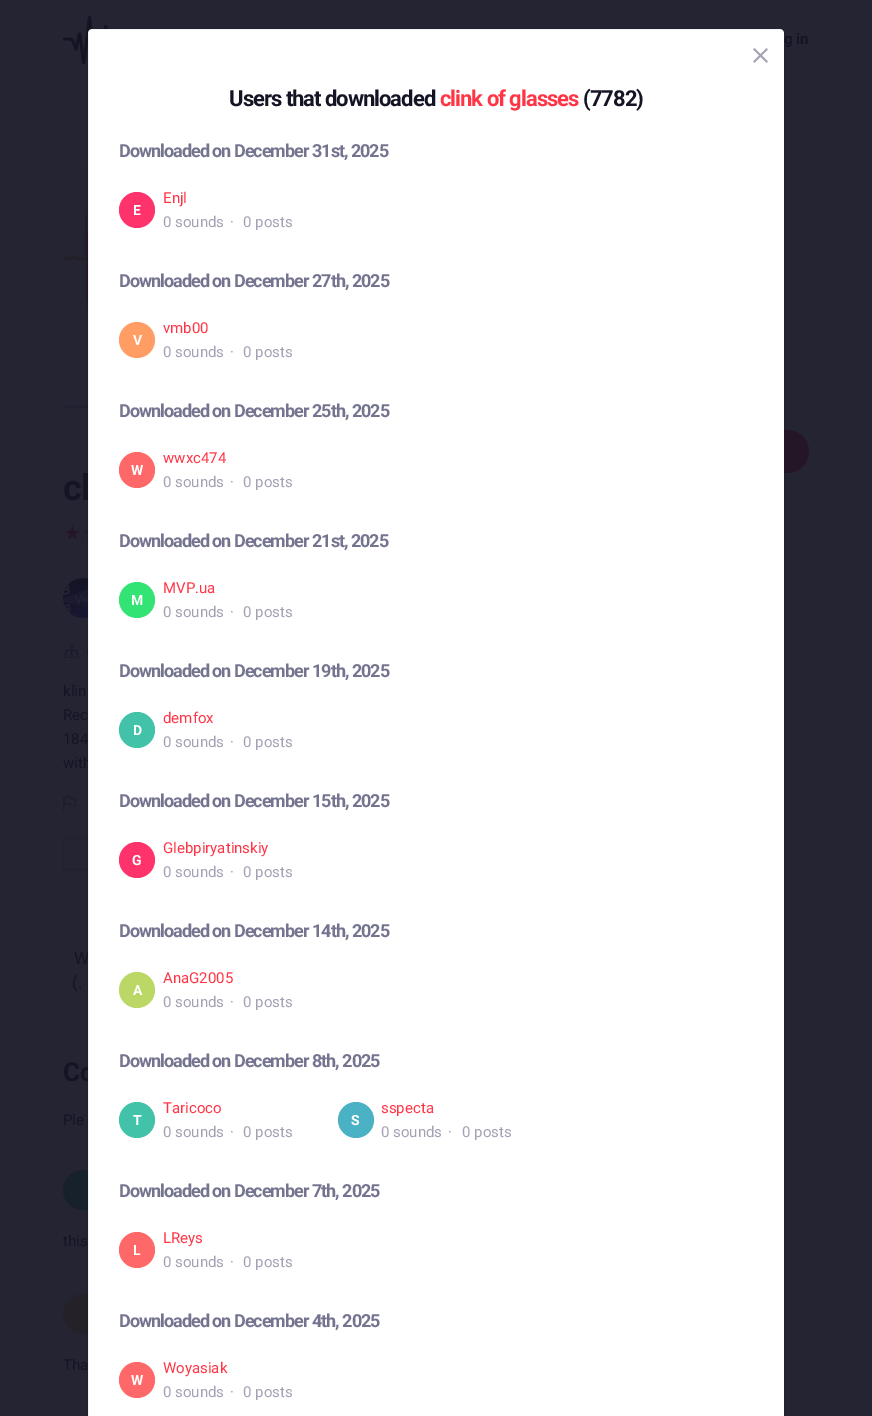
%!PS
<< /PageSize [872 1416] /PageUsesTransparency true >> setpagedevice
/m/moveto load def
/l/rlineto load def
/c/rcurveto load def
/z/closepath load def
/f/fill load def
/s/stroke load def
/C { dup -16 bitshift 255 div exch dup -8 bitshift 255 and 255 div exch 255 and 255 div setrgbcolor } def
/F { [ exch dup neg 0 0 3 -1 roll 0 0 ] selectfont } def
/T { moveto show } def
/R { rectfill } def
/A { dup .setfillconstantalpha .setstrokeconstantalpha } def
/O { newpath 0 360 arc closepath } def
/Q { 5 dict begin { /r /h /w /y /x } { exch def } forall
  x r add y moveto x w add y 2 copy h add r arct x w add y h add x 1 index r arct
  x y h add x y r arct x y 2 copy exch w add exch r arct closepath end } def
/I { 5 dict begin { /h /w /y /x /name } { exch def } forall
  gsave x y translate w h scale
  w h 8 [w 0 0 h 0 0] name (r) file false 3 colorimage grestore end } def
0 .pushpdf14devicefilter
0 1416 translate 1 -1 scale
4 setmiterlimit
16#242433 C
0 0 872 1416 R
(1.rgb) 63 16 45 48 I
/Roboto-Bold 15 F
16#141424 C
(g in) 784 44 T
16#241626 C
600 430 209 43 21.5 Q f
(2.rgb) 63 171 25 146 I
16#212131 C
63 405 497 3 1.5 Q f
/Roboto-Bold 36 F
16#141424 C
63 500 m -1 0 (cl) ashow
(3.rgb) 65 525 15 15 I
(4.rgb) 84 530 4 10 I
(5.rgb) 63 578 25 40 I
(6.rgb) 64 643 15 15 I
(7.rgb) 87 650 1 5 I
/Roboto-Regular 15 F
(klin) 63 696 T
(Rec) 63 720 T
(184) 63 744 T
(with) 63 768 T
(8.rgb) 63 795 14 16 I
16#212131 C
63.5 838.5 44 31 rectstroke
/Roboto-Regular 17 F
16#141424 C
(W) 74 964 T
(\(.) 72 988 T
/Roboto-Bold 26 F
(Co) 63 1081 T
/Roboto-Regular 15 F
(Ple) 63 1125 T
16#17212B C
83 1190 20 O f
16#141424 C
(this) 63 1246 T
16#242128 C
83 1314 20 O f
16#141424 C
(Tha) 63 1370 T
16#FFFFFF C
92 29 m 688 0 l 2 0 4 2 4 4 c 0 1383 l -696 0 l 0 -1383 l 0 -2 2 -4 4 -4 c z f
0.2 A
16#141424 C
87.5 28.5 697 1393 4.5 Q s
1 A
(9.rgb) 753 48 15 15 I
/Roboto-Bold 22 F
229 106 m -1 0 (Users that downloaded) ashow
16#FF3546 C
440 106 m -1 0 (clink of glasses) ashow
16#141424 C
583 106 m -1 0 (\(7782\)) ashow
/Roboto-Bold 18 F
16#747490 C
119 157 m -1 0 (Downloaded on December 31st, 2025) ashow
16#FF336B C
137 210 18 O f
/Roboto-Bold 14 F
16#FFFFFF C
(E) 133 215 T
/Roboto-Regular 15 F
16#FF3546 C
(Enjl) 163 203 T
16#A2A2B4 C
(0 sounds) 163 227 T
(·) 230 227 T
(0 posts) 243 227 T
/Roboto-Bold 18 F
16#747490 C
119 287 m -1 0 (Downloaded on December 27th, 2025) ashow
16#FF9D65 C
137 340 18 O f
/Roboto-Bold 14 F
16#FFFFFF C
(V) 133 345 T
/Roboto-Regular 15 F
16#FF3546 C
(vmb00) 163 333 T
16#A2A2B4 C
(0 sounds) 163 357 T
(·) 230 357 T
(0 posts) 243 357 T
/Roboto-Bold 18 F
16#747490 C
119 417 m -1 0 (Downloaded on December 25th, 2025) ashow
16#FF6868 C
137 470 18 O f
/Roboto-Bold 14 F
16#FFFFFF C
(W) 131 475 T
/Roboto-Regular 15 F
16#FF3546 C
(wwxc474) 163 463 T
16#A2A2B4 C
(0 sounds) 163 487 T
(·) 230 487 T
(0 posts) 243 487 T
/Roboto-Bold 18 F
16#747490 C
119 547 m -1 0 (Downloaded on December 21st, 2025) ashow
16#33E373 C
137 600 18 O f
/Roboto-Bold 14 F
16#FFFFFF C
(M) 131 605 T
/Roboto-Regular 15 F
16#FF3546 C
(MVP.ua) 163 593 T
16#A2A2B4 C
(0 sounds) 163 617 T
(·) 230 617 T
(0 posts) 243 617 T
/Roboto-Bold 18 F
16#747490 C
119 677 m -1 0 (Downloaded on December 19th, 2025) ashow
16#42C2A9 C
137 730 18 O f
/Roboto-Bold 14 F
16#FFFFFF C
(D) 133 735 T
/Roboto-Regular 15 F
16#FF3546 C
(demfox) 163 723 T
16#A2A2B4 C
(0 sounds) 163 747 T
(·) 230 747 T
(0 posts) 243 747 T
/Roboto-Bold 18 F
16#747490 C
119 807 m -1 0 (Downloaded on December 15th, 2025) ashow
16#FF336B C
137 860 18 O f
/Roboto-Bold 14 F
16#FFFFFF C
(G) 132 865 T
/Roboto-Regular 15 F
16#FF3546 C
(Glebpiryatinskiy) 163 853 T
16#A2A2B4 C
(0 sounds) 163 877 T
(·) 230 877 T
(0 posts) 243 877 T
/Roboto-Bold 18 F
16#747490 C
119 937 m -1 0 (Downloaded on December 14th, 2025) ashow
16#BBD867 C
137 990 18 O f
/Roboto-Bold 14 F
16#FFFFFF C
(A) 133 995 T
/Roboto-Regular 15 F
16#FF3546 C
(AnaG2005) 163 983 T
16#A2A2B4 C
(0 sounds) 163 1007 T
(·) 230 1007 T
(0 posts) 243 1007 T
/Roboto-Bold 18 F
16#747490 C
119 1067 m -1 0 (Downloaded on December 8th, 2025) ashow
16#42C2A9 C
137 1120 18 O f
/Roboto-Bold 14 F
16#FFFFFF C
(T) 133 1125 T
/Roboto-Regular 15 F
16#FF3546 C
(Taricoco) 163 1113 T
16#A2A2B4 C
(0 sounds) 163 1137 T
(·) 230 1137 T
(0 posts) 243 1137 T
16#4AB2C4 C
356 1120 18 O f
/Roboto-Bold 14 F
16#FFFFFF C
(S) 351 1125 T
/Roboto-Regular 15 F
16#FF3546 C
(sspecta) 381 1113 T
16#A2A2B4 C
(0 sounds) 381 1137 T
(·) 448 1137 T
(0 posts) 462 1137 T
/Roboto-Bold 18 F
16#747490 C
119 1197 m -1 0 (Downloaded on December 7th, 2025) ashow
16#FF6868 C
137 1250 18 O f
/Roboto-Bold 14 F
16#FFFFFF C
(L) 133 1255 T
/Roboto-Regular 15 F
16#FF3546 C
(LReys) 163 1243 T
16#A2A2B4 C
(0 sounds) 163 1267 T
(·) 230 1267 T
(0 posts) 243 1267 T
/Roboto-Bold 18 F
16#747490 C
119 1327 m -1 0 (Downloaded on December 4th, 2025) ashow
16#FF6868 C
137 1380 18 O f
/Roboto-Bold 14 F
16#FFFFFF C
(W) 131 1385 T
/Roboto-Regular 15 F
16#FF3546 C
(Woyasiak) 163 1373 T
16#A2A2B4 C
(0 sounds) 163 1397 T
(·) 230 1397 T
(0 posts) 243 1397 T
.poppdf14devicefilter showpage
